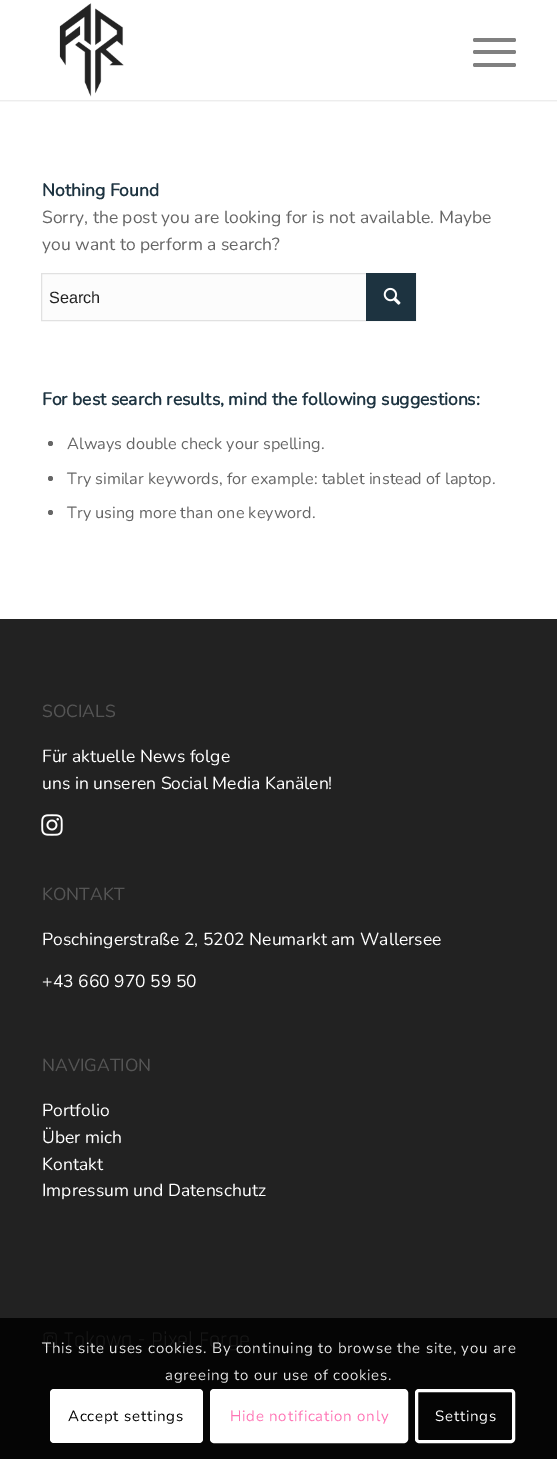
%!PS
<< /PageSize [557 1459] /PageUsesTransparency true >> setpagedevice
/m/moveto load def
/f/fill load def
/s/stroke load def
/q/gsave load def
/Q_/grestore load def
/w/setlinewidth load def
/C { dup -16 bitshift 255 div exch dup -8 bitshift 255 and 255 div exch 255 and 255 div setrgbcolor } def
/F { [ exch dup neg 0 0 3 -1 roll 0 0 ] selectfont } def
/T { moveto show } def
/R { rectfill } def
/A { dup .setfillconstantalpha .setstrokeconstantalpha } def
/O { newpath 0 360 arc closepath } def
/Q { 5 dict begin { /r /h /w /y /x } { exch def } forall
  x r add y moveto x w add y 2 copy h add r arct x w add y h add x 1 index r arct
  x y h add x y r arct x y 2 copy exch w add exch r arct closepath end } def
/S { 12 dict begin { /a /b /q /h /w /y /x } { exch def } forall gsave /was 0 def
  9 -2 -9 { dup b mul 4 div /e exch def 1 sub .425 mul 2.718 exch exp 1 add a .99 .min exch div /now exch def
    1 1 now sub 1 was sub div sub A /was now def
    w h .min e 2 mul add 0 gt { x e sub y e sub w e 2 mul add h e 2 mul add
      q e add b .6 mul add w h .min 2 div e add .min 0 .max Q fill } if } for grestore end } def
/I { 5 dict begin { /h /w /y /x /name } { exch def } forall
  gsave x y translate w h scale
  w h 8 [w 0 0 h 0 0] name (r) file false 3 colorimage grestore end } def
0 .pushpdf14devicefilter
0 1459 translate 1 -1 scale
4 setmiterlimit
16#050505 C
0 0 557 1459 R
16#FFFFFF C
0 0 557 619 R
q
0 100 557 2 rectclip
16#000000 C
-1 -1 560 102 0 1 .1 S
Q_
(1.rgb) 59 3 65 94 I
16#808080 C
473 50 43 4 2 Q f
473 38 43 4 2 Q f
473 63 43 4 2 Q f
/Nunito-Bold 17.5 F
16#1D3340 C
(Nothing Found) 42 196 T
/Nunito-ExtraLight 17.5 F
16#666666 C
(Sorry, the post you are looking for is not available. Maybe) 42 223 T
(you want to perform a search?) 42 250 T
16#FCFCFC C
42 274 324 46 R
16#E1E1E1 C
41.5 273.5 374 47 rectstroke
/LiberationSans-Regular 16.25 F
16#222222 C
(Search) 49 303 T
16#1D3340 C
366 273 50 48 R
(2.rgb) 383 287 18 18 I
/Nunito-Bold 17.5 F
(For best search results, mind the following suggestions:) 42 405 T
16#666666 C
50.5 443.5 2.5 O f
/Nunito-ExtraLight 16.25 F
(Always double check your spelling.) 67 449 T
50.5 478.5 2.5 O f
(Try similar keywords, for example: tablet instead of laptop.) 67 484 T
50.5 512.5 2.5 O f
(Try using more than one keyword.) 67 518 T
16#222222 C
0 619 557 699 R
/Nunito-ExtraLight 17.5 F
16#555555 C
(SOCIALS) 42 717 T
16#FFFFFF C
(Für aktuelle News folge) 42 762 T
(uns in unseren Social Media Kanälen!) 42 789 T
(3.rgb) 41 814 22 22 I
16#555555 C
(KONTAKT) 42 900 T
16#FFFFFF C
(Poschingerstraße 2, 5202 Neumarkt am Wallersee) 42 945 T
(+43 660 970 59 50) 42 987 T
16#555555 C
(NAVIGATION) 42 1071 T
16#FFFFFF C
(Portfolio) 42 1116 T
(Über mich) 42 1143 T
(Kontakt) 42 1170 T
(Impressum und Datenschutz) 42 1196 T
/Rajdhani-Regular 22.5 F
16#171717 C
(© Tokowa - Pixel Forge) 42 1347 T
/Nunito-ExtraLight 15 F
16#E6E6E6 C
42 1353 m .75 0 (This site uses cookies. By continuing to browse the site, you are) ashow
165 1380 m .75 0 (agreeing to our use of cookies.) ashow
16#FFFFFF C
50 1389 153 54 4 Q f
16#000000 C
68 1421 m .75 0 (Accept settings) ashow
16#FFFFFF C
211.5 1390.5 195 51 2.5 Q q f Q_
3 w
s
16#FF75B5 C
230 1421 m .75 0 (Hide notification only) ashow
16#FFFFFF C
416.5 1390.5 97 51 2.5 Q s
435 1421 m .75 0 (Settings) ashow
.poppdf14devicefilter showpage
